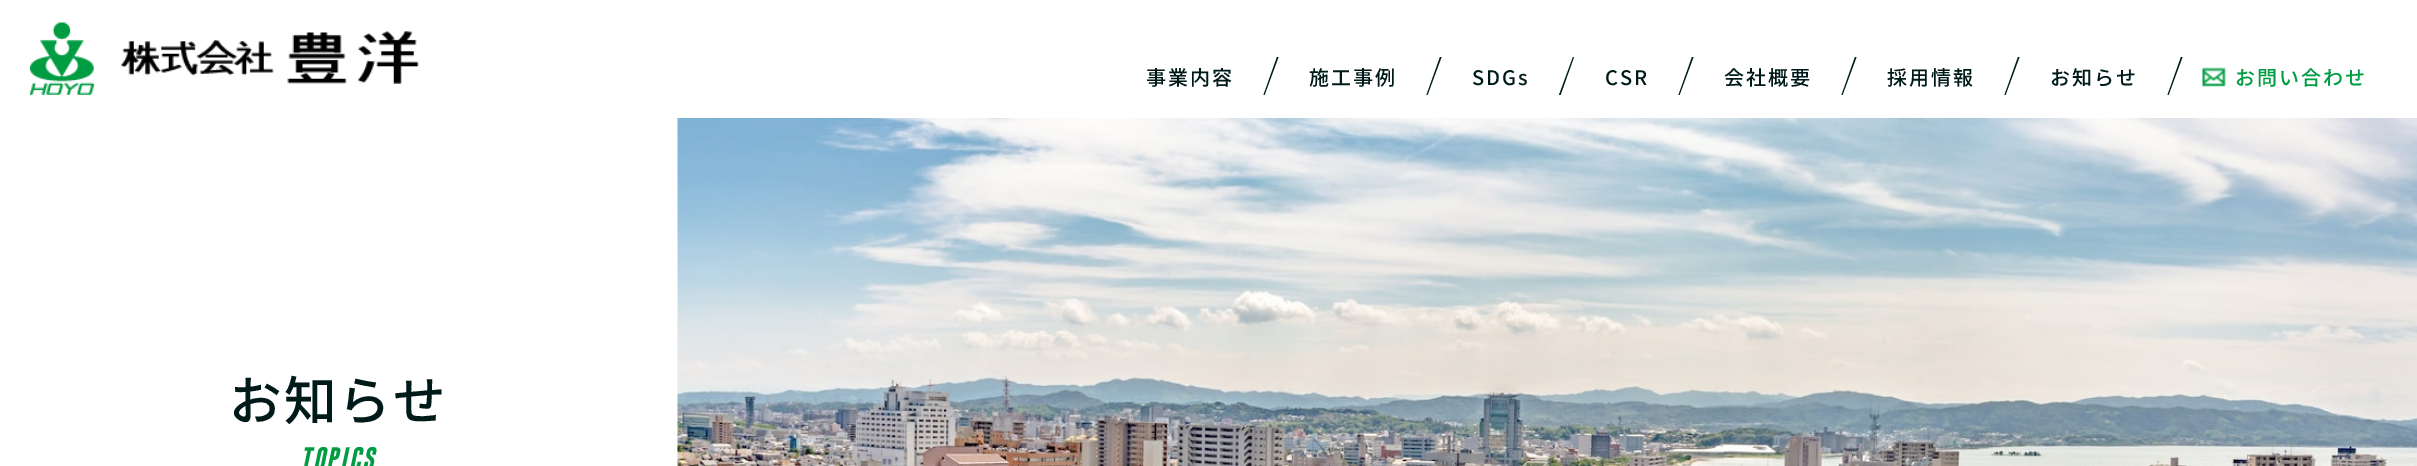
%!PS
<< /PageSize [2417 466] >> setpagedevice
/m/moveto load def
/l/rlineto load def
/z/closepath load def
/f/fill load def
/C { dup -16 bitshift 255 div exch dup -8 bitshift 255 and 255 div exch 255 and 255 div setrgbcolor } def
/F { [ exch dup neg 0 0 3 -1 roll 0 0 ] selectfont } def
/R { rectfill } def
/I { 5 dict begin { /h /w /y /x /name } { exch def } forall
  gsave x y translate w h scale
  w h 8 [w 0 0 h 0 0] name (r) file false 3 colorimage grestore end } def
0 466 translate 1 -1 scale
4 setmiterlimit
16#FFFFFF C
0 0 2417 466 R
(1.rgb) 30 22 389 73 I
/NotoSansJP-Medium 20 F
16#001A1A C
1146 85 m 2 0 (事業内容) ashow
1277 57 m 1.5 0 l -14 38 l -1 0 l z f
1309 85 m 2 0 (施工事例) ashow
1440 57 m 1.5 0 l -14 38 l -1 0 l z f
1472 85 m 2 0 (SDGs) ashow
1573 57 m 1 0 l -13.5 38 l -1.5 0 l z f
1605 85 m 2 0 (CSR) ashow
1692 57 m 1.5 0 l -14 38 l -1 0 l z f
1724 85 m 2 0 (会社概要) ashow
1855 57 m 1.5 0 l -14 38 l -1 0 l z f
1887 85 m 2 0 (採用情報) ashow
2018 57 m 1.5 0 l -14 38 l -1 0 l z f
2050 85 m 2 0 (お知らせ) ashow
2181 57 m 1.5 0 l -14 38 l -1 0 l z f
(2.rgb) 2202 67 24 20 I
16#009C41 C
2235 85 m 2 0 (お問い合わせ) ashow
/NotoSansJP-Medium 52.5 F
16#001A1A C
229 420 m 2 0 (お知らせ) ashow
/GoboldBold-BoldItalic 22.5 F
16#009C41 C
300 469 m 2 0 (TOPICS) ashow
(3.rgb) 677 118 1740 348 I
showpage
